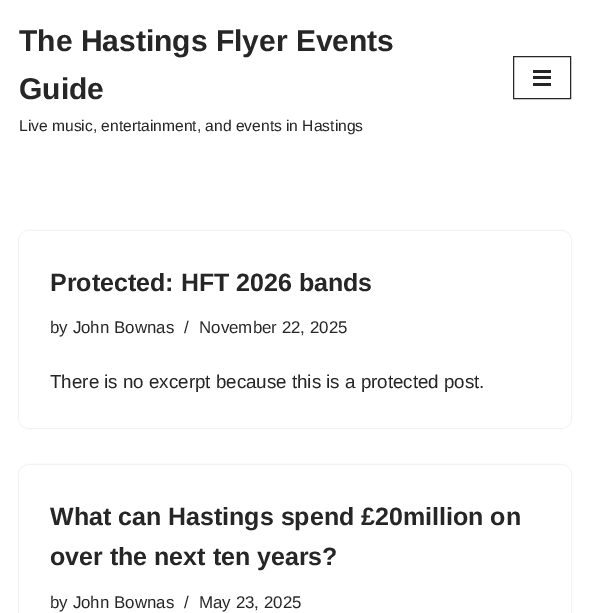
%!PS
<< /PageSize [589 613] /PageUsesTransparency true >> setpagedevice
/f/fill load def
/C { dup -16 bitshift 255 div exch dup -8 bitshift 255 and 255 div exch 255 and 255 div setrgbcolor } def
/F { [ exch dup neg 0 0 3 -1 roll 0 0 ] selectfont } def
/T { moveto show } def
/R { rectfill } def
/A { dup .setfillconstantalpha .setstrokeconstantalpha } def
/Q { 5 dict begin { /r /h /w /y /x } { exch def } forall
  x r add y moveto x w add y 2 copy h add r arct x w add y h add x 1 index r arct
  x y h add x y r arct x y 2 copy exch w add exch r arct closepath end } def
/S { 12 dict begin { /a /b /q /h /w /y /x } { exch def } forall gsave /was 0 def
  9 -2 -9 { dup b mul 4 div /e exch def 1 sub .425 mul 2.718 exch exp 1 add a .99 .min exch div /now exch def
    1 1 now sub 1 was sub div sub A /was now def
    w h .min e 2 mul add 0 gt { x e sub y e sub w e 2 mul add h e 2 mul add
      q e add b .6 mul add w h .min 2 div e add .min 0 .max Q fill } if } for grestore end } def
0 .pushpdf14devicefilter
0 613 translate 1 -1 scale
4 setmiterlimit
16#FFFFFF C
0 0 589 613 R
/LiberationSans-Bold 30 F
16#272626 C
(The Hastings Flyer Events) 19 51 T
(Guide) 19 99 T
/LiberationSans-Regular 15.6 F
(Live music, entertainment, and events in Hastings) 19 131 T
513.5 56.5 57 42 rectstroke
533 70 18 3 R
533 76 18 3 R
533 83 18 3 R
16#000000 C
19 231 552 197 10 1 .15 S
16#FFFFFF C
19 231 552 197 10 Q f
/LiberationSans-Bold 25 F
16#272626 C
(Protected: HFT 2026 bands) 50 291 T
/LiberationSans-Regular 16.9 F
(by John Bownas) 50 333 T
(/) 184 333 T
(November 22, 2025) 199 333 T
/LiberationSans-Regular 18.75 F
(There is no excerpt because this is a protected post.) 50 388 T
16#000000 C
19 465 552 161 10 1 .15 S
16#FFFFFF C
19 465 552 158 10 Q f
/LiberationSans-Bold 25 F
16#272626 C
(What can Hastings spend £20million on) 50 525 T
(over the next ten years?) 50 565 T
/LiberationSans-Regular 16.9 F
(by John Bownas) 50 608 T
(/) 184 608 T
(May 23, 2025) 199 608 T
.poppdf14devicefilter showpage
